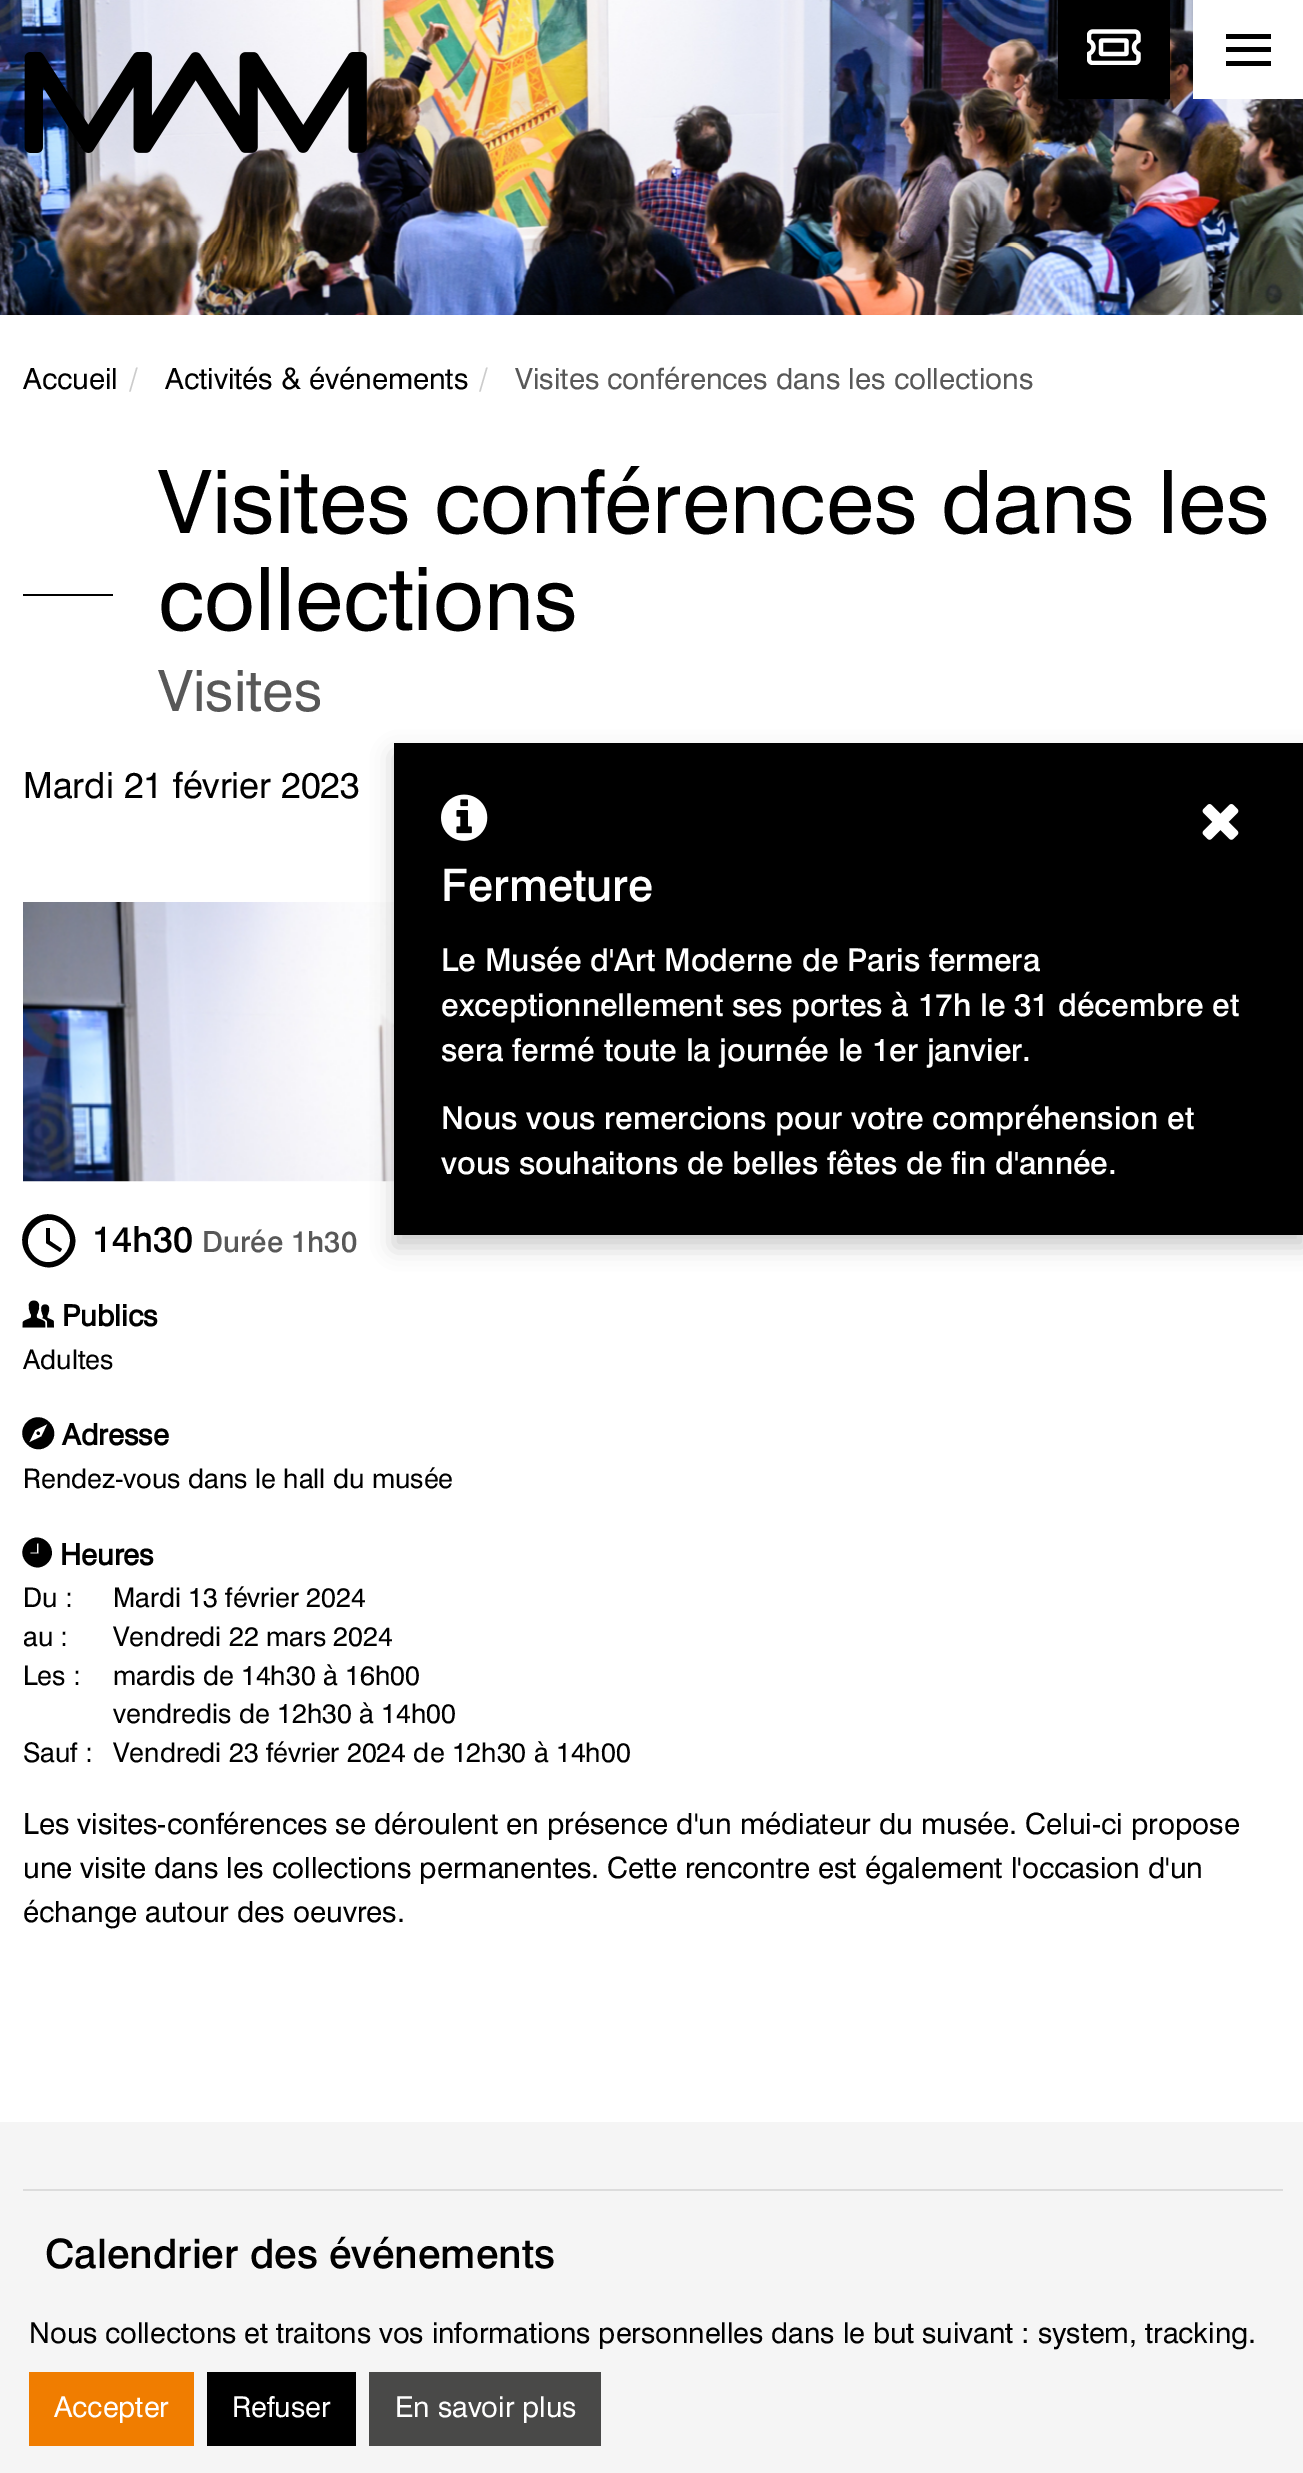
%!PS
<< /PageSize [1303 2473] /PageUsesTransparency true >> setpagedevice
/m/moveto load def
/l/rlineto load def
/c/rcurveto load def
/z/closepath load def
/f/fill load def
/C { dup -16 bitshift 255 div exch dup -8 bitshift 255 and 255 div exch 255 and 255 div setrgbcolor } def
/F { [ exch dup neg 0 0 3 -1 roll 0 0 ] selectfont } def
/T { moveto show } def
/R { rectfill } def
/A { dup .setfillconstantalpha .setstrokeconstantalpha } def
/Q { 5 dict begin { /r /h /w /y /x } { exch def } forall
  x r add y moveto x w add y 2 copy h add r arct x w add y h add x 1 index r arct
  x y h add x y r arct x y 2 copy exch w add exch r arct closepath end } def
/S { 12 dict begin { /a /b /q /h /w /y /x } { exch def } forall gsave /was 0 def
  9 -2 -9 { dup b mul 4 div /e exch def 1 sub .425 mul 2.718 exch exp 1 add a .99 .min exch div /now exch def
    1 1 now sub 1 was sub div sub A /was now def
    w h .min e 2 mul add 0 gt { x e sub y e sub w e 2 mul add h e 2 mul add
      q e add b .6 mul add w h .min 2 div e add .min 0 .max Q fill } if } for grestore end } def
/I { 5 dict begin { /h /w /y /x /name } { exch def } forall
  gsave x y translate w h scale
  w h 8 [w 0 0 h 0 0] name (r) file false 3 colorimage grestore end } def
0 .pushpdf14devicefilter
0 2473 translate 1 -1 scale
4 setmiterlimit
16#FFFFFF C
0 0 1303 2473 R
(2.rgb) 0 0 1303 315 I
16#000000 C
1058 0 112 99 R
(1.rgb) 1087 29 54 36 I
16#FFFFFF C
1193 0 110 99 R
16#000000 C
1226 34 45 5 R
1226 47 45 5 R
1226 61 45 5 R
(3.rgb) 24 52 343 101 I
/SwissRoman-Regular 29.25 F
(Accueil) 23 389 T
16#CCCCCC C
(/) 129 389 T
16#000000 C
(Activités & événements) 165 389 T
16#CCCCCC C
(/) 479 389 T
16#585858 C
(Visites conférences dans les collections) 515 389 T
/SwissRoman-Regular 87.75 F
16#000000 C
(Visites conférences dans les) 158 533 T
23 594 90 2 R
(collections) 158 630 T
/SwissRoman-Regular 57 F
16#585858 C
(Visites) 158 711 T
/SwissRoman-Regular 36 F
16#000000 C
(Mardi 21 février 2023) 23 798 T
(4.rgb) 23 902 371 280 I
30 1222 m 25 -24 62 13 37 37 c -24 25 -61 -12 -37 -37 c z 34 1256 m 19 19 49 -10 30 -30 c -20 -19 -49 10 -30 30 c z 50 1228 m 0 13 l 12 8 l -2 3 l -14 -9 l 0 -15 l z f
/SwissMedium-Medium 36 F
(14h30) 92 1252 T
/SwissMedium-Medium 29.25 F
16#585858 C
(Durée 1h30) 202 1252 T
(5.rgb) 22 1300 32 28 I
/SwissRoman-Bold 29.25 F
16#000000 C
(Publics) 62 1326 T
/SwissRoman-Regular 27 F
(Adultes) 23 1369 T
37 1432 m 1.5 -1.5 4 1 2.5 2.5 c -1.5 1.5 -4 -1 -2.5 -2.5 c z 27 1422 m 15 -14.5 37 7.5 22.5 22.5 c -15 14.5 -37 -7.5 -22.5 -22.5 c z 41.5 1436.5 m 6 -12.5 l -12.5 6 l -6 12.5 l z f
/SwissRoman-Bold 29.25 F
(Adresse) 62 1445 T
/SwissRoman-Regular 27 F
(Rendez-vous dans le hall du musée) 23 1488 T
27 1542 m 13.5 -13.5 34 7 20.5 21 c -13.5 13.5 -34.5 -7 -20.5 -21 c z 38.5 1553.5 m 0 -10 l -1.5 0 l 0 9 l -6.5 0 l 0 1 l z f
/SwissRoman-Bold 29.25 F
(Heures) 60 1565 T
/SwissRoman-Regular 27 F
(Du :) 23 1607 T
(Mardi 13 février 2024) 113 1607 T
(au :) 23 1646 T
(Vendredi 22 mars 2024) 113 1646 T
(Les :) 23 1685 T
(mardis de 14h30 à 16h00) 113 1685 T
(vendredis de 12h30 à 14h00) 113 1723 T
(Sauf :) 23 1762 T
(Vendredi 23 février 2024 de 12h30 à 14h00) 113 1762 T
/SwissRoman-Regular 29.25 F
(Les visites-conférences se déroulent en présence d'un médiateur du musée. Celui-ci propose) 23 1834 T
(une visite dans les collections permanentes. Cette rencontre est également l'occasion d'un) 23 1878 T
(échange autour des oeuvres.) 23 1922 T
16#F5F5F5 C
0 2122 1303 351 R
16#DCDCDC C
23 2189 1260 2 R
/SwissMedium-Medium 40.5 F
16#000000 C
(Calendrier des événements) 45 2268 T
394 754 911 493 0 11 .2 S
394 743 909 492 R
(6.rgb) 1202 804 37 36 I
(7.rgb) 441 794 47 47 I
/SwissMedium-Medium 45 F
16#FFFFFF C
(Fermeture) 441 901 T
/SwissMedium-Medium 31.5 F
(Le Musée d'Art Moderne de Paris fermera) 441 971 T
(exceptionnellement ses portes à 17h le 31 décembre et) 441 1016 T
(sera fermé toute la journée le 1er janvier.) 441 1061 T
(Nous vous remercions pour votre compréhension et) 441 1129 T
(vous souhaitons de belles fêtes de fin d'année.) 441 1174 T
/SwissRoman-Regular 28.8 F
16#000000 C
(Nous collectons et traitons vos informations personnelles dans le but suivant : system, tracking.) 29 2343 T
16#F07D00 C
29 2372 165 74 R
16#FFFFFF C
(Accepter) 54 2417 T
16#000000 C
207 2372 149 74 R
16#FFFFFF C
(Refuser) 232 2417 T
16#494948 C
369 2372 232 74 R
16#FFFFFF C
(En savoir plus) 395 2417 T
.poppdf14devicefilter showpage
